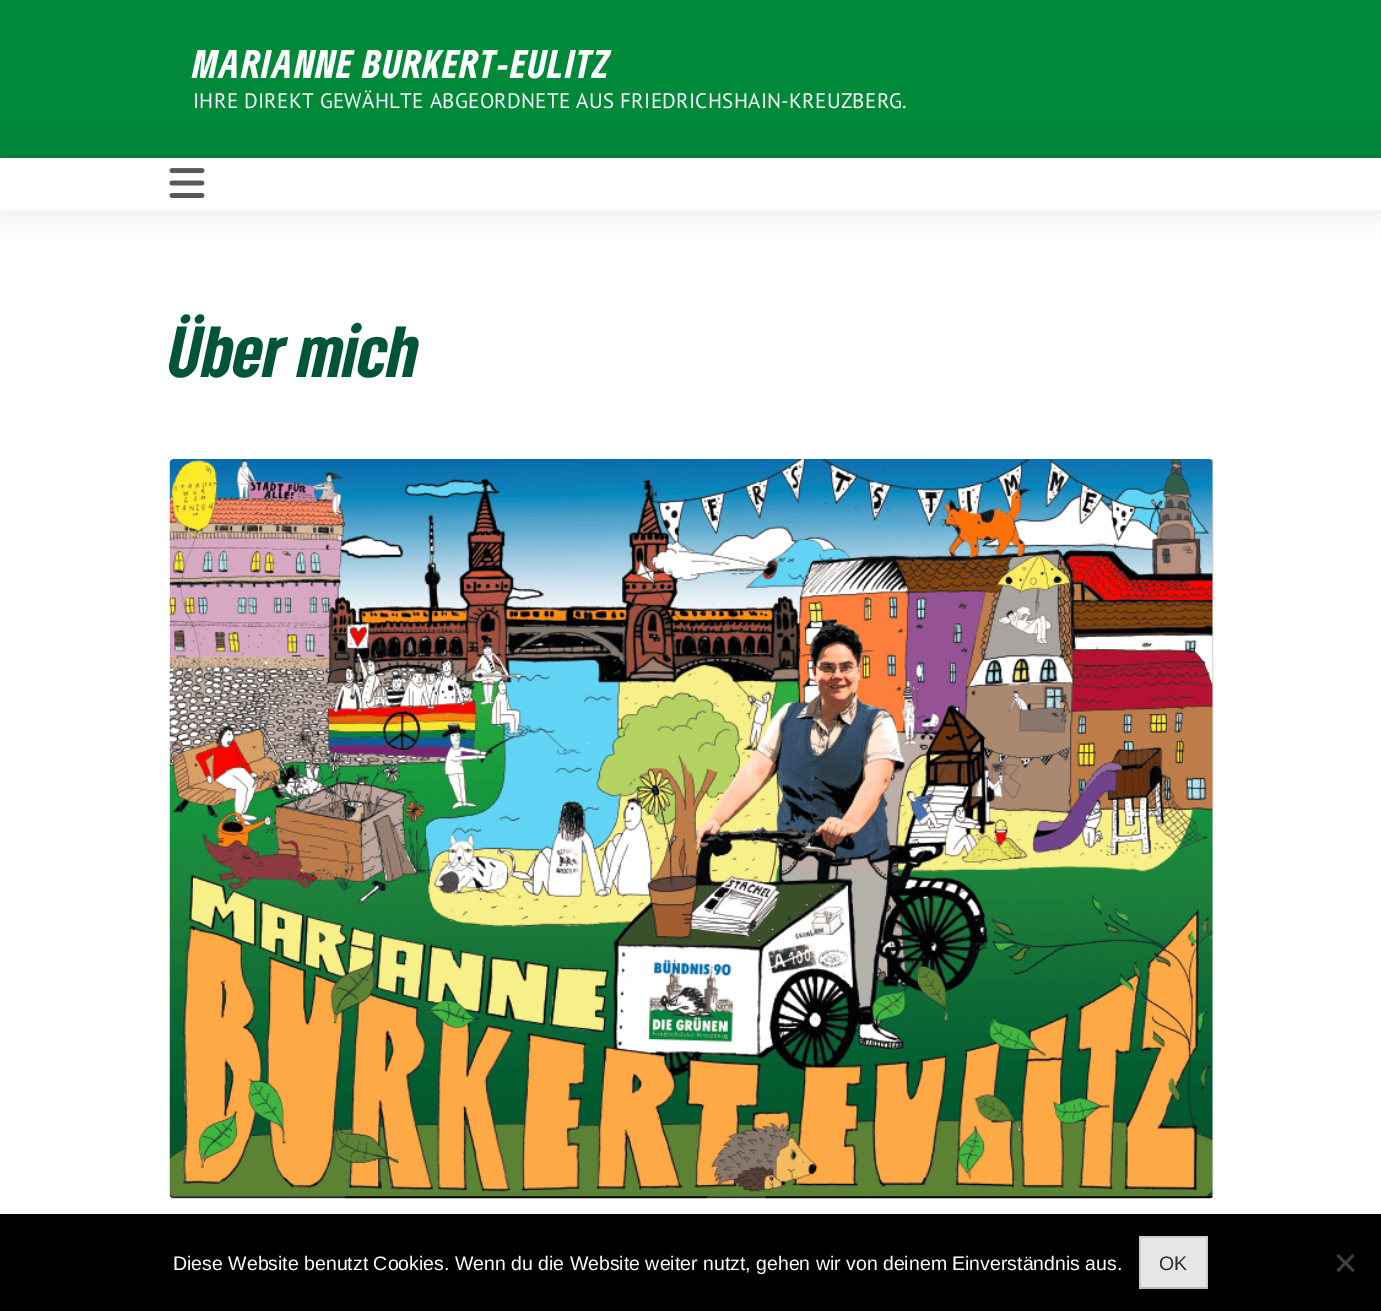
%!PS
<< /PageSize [1381 1311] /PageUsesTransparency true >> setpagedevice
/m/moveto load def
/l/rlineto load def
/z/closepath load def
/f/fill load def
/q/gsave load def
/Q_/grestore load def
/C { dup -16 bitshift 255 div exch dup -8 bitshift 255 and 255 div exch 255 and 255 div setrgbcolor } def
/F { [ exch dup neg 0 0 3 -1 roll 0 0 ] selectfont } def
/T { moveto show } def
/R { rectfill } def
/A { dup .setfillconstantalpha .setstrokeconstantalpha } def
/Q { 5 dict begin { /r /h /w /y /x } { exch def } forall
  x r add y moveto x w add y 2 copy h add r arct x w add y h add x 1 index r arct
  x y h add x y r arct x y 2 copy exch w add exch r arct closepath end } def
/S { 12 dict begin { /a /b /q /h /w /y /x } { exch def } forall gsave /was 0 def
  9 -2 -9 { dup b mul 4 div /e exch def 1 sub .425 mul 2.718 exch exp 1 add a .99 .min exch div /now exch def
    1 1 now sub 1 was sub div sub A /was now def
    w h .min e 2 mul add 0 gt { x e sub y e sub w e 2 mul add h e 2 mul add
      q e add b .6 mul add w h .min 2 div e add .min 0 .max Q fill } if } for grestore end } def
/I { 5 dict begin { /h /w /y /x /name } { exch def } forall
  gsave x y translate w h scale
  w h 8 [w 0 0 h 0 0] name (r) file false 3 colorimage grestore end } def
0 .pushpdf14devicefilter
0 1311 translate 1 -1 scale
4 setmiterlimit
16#FFFFFF C
0 0 1381 1311 R
16#008939 C
0 0 1381 158 R
/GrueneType-Black 37.5 F
16#FFFFFF C
193 78 m 1.5 0 (MARIANNE BURKERT-EULITZ) ashow
/PTSans-Regular 21 F
193 108 m .3 0 (IHRE DIREKT GEWÄHLTE ABGEORDNETE AUS FRIEDRICHSHAIN-KREUZBERG.) ashow
q
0 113 m 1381 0 l 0 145 l -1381 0 l z 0 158 m 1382 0 l 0 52 l -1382 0 l z eoclip newpath
16#000000 C
0 159 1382 53 0 15 .08 S
Q_
(1.rgb) 169 168 36 30 I
/GrueneType-Black 67.5 F
16#005437 C
(Über mich) 169 377 T
(2.rgb) 169 459 1045 740 I
16#000000 C
0 1214 1381 97 R
/LiberationSans-Regular 19.5 F
16#FFFFFF C
(Diese Website benutzt Cookies. Wenn du die Website weiter nutzt, gehen wir von deinem Einverständnis aus.) 173 1270 T
16#E6E6E6 C
1141 1238 65 49 R
16#CCCCCC C
1139 1236 69 2 R
1206 1236 2 53 R
16#BBBBBB C
1139 1287 69 2 R
16#CCCCCC C
1139 1236 2 53 R
16#2E2E2E C
(OK) 1159 1270 T
16#404040 C
1352.5 1254 m 2 2 l -16 16 l -2 -2 l z f
1336.5 1256 m 2 -2 l 16 16 l -2 2 l z f
.poppdf14devicefilter showpage
